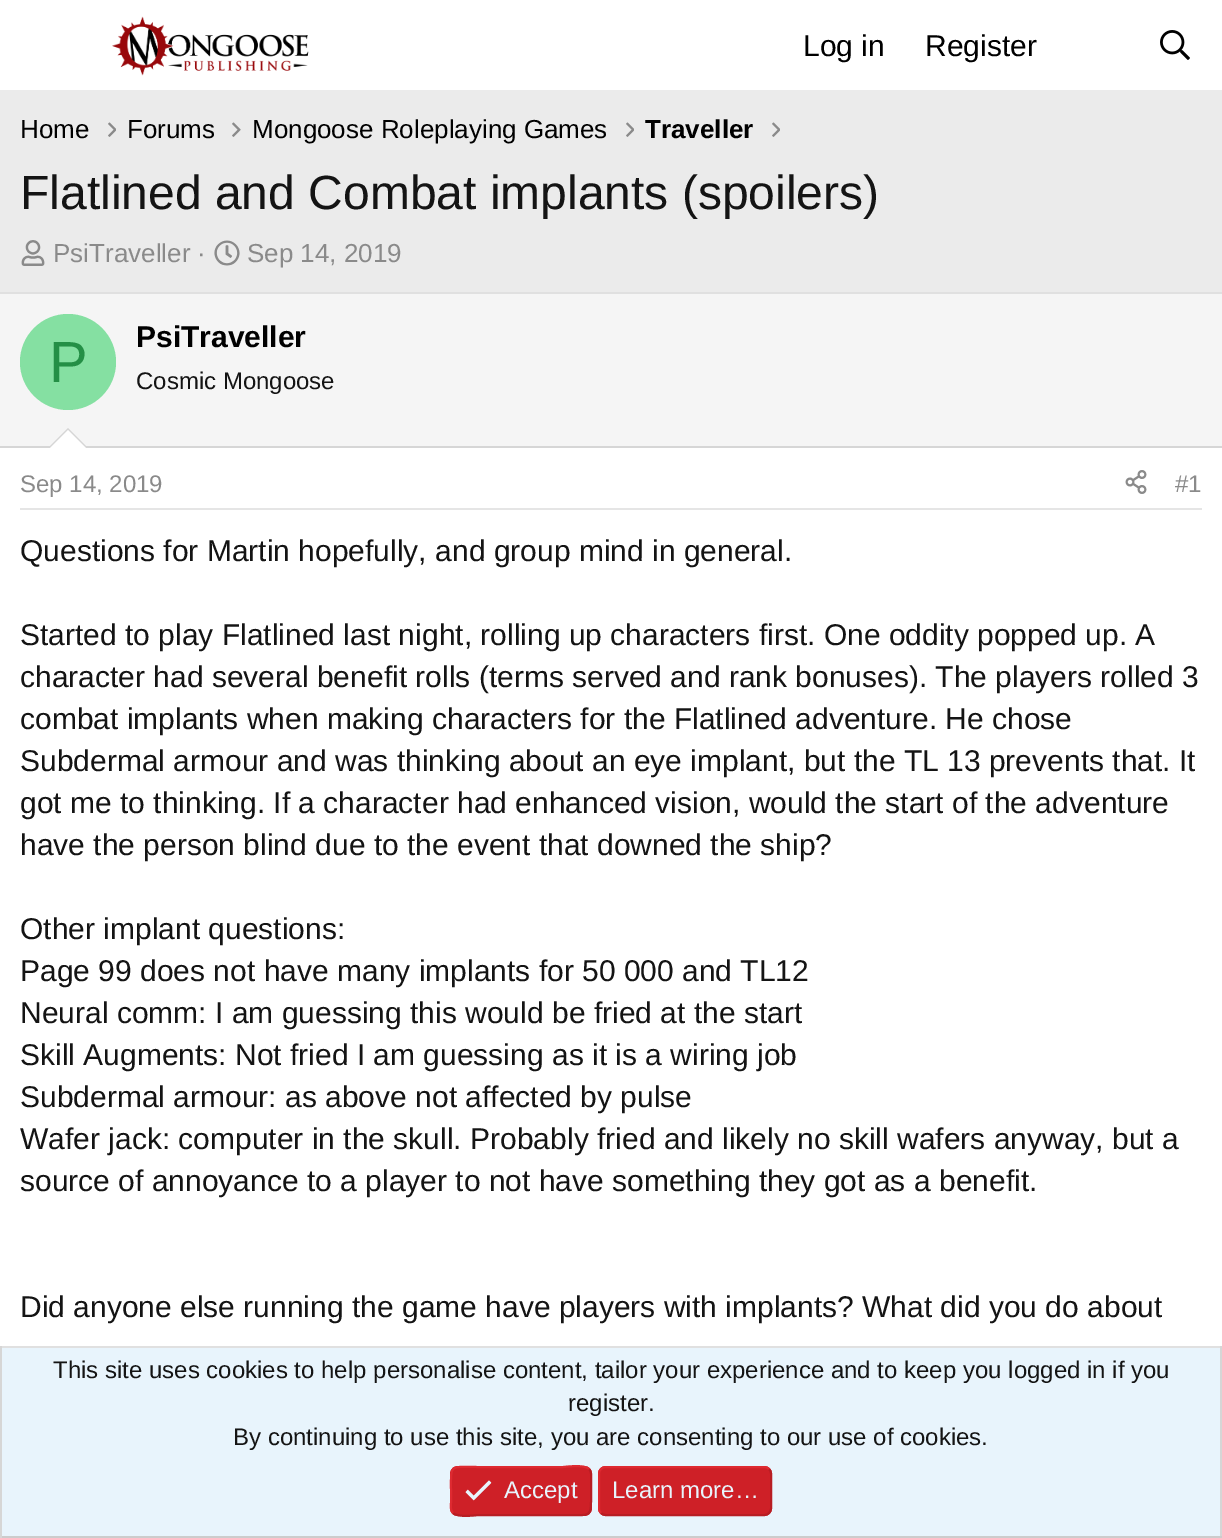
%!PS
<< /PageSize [1222 1538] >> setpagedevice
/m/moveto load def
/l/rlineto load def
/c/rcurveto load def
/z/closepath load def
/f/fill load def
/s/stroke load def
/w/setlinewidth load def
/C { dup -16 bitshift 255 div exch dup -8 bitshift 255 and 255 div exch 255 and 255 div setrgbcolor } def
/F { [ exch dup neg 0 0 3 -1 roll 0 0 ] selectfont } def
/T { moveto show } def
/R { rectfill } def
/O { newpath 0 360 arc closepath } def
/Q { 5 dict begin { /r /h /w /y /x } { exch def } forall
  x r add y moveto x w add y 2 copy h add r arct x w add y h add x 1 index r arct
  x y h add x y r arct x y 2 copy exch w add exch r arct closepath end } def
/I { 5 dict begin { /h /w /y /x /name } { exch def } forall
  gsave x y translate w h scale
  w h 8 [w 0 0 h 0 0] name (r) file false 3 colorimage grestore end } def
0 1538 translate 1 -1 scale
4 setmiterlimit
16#EBEBEB C
0 0 1222 1538 R
16#FFFFFF C
0 0 1222 90 R
(1.rgb) 112 16 197 60 I
/LiberationSans-Regular 30 F
16#000000 C
(Log in) 803 56 T
(Register) 925 56 T
(2.rgb) 1160 30 30 30 I
/LiberationSans-Regular 26 F
(Home) 20 138 T
(3.rgb) 108 122 8 15 I
(Forums) 127 138 T
(4.rgb) 232 122 9 15 I
(Mongoose Roleplaying Games) 252 138 T
(3.rgb) 626 122 8 15 I
/LiberationSans-Bold 26 F
(Traveller) 645 138 T
(3.rgb) 772 122 8 15 I
/LiberationSans-Regular 48 F
16#141414 C
(Flatlined and Combat implants \(spoilers\)) 20 209 T
(5.rgb) 21 240 24 26 I
/LiberationSans-Regular 26 F
16#8A8A8A C
(PsiTraveller ·) 53 262 T
(6.rgb) 214 240 26 26 I
(Sep 14, 2019) 247 262 T
16#FFFFFF C
0 448 1222 898 R
16#E0E0E0 C
0 292 1222 2 R
16#F5F5F5 C
0 294 1222 152 R
16#D6D6D6 C
0 446 1222 2 R
16#85E0A2 C
68 362 48 O f
/LiberationSans-Regular 58 F
16#248F46 C
(P) 49 382 T
/LiberationSans-Bold 30 F
16#000000 C
(PsiTraveller) 136 347 T
/LiberationSans-Regular 24 F
16#141414 C
(Cosmic Mongoose) 136 389 T
16#D6D6D6 C
88 448 m -40 0 l 20 -20 l z f
16#FFFFFF C
86 448 m -36 0 l 18 -18 l z f
16#E5E5E5 C
20 508 1182 2 R
16#8A8A8A C
(Sep 14, 2019) 20 492 T
(7.rgb) 1125 470 22 24 I
(#1) 1175 492 T
/LiberationSans-Regular 30 F
16#141414 C
(Questions for Martin hopefully, and group mind in general.) 20 561 T
(Started to play Flatlined last night, rolling up characters first. One oddity popped up. A) 20 645 T
(character had several benefit rolls \(terms served and rank bonuses\). The players rolled 3) 20 687 T
(combat implants when making characters for the Flatlined adventure. He chose) 20 729 T
(Subdermal armour and was thinking about an eye implant, but the TL 13 prevents that. It) 20 771 T
(got me to thinking. If a character had enhanced vision, would the start of the adventure) 20 813 T
(have the person blind due to the event that downed the ship?) 20 855 T
(Other implant questions:) 20 939 T
(Page 99 does not have many implants for 50 000 and TL12) 20 981 T
(Neural comm: I am guessing this would be fried at the start) 20 1023 T
(Skill Augments: Not fried I am guessing as it is a wiring job) 20 1065 T
(Subdermal armour: as above not affected by pulse) 20 1107 T
(Wafer jack: computer in the skull. Probably fried and likely no skill wafers anyway, but a) 20 1149 T
(source of annoyance to a player to not have something they got as a benefit.) 20 1191 T
(Did anyone else running the game have players with implants? What did you do about) 20 1317 T
16#E8F4FC C
2 1348 1218 188 R
16#E0E0E0 C
0 1346 1222 2 R
16#D6D6D6 C
1220 1346 2 192 R
16#CCCCCC C
0 1536 1222 2 R
16#D6D6D6 C
0 1346 2 192 R
/LiberationSans-Regular 24 F
16#141414 C
(This site uses cookies to help personalise content, tailor your experience and to keep you logged in if you) 53 1378 T
(register.) 568 1411 T
(By continuing to use this site, you are consenting to our use of cookies.) 233 1445 T
16#CE2027 C
450 1466 142 50 8 Q f
16#B81D23 C
2 w
589 1469 m 3 3 2 7 2 10.5 c 0 11.5 l 0 28 2.5 24 -28 24 c -84 0 l -2 0 -21 3 -26 -2 c s
16#DE2A31 C
453 1513 m -3 -3 -2 -7 -2 -10.5 c 0 -11.5 l 0 -28 -2.5 -24 28 -24 c 84 0 l 2 0 21 -3 26 2 c s
(8.rgb) 465 1480 27 21 I
16#E8F4FC C
(Accept) 504 1498 T
16#CE2027 C
598 1466 174 50 8 Q f
16#B81D23 C
769 1469 m 1.5 1.5 2 3 2 5 c 0 34 l 0 2 -.5 3.5 -2 5 c -1.5 1.5 -3 2 -5 2 c -158 0 l -2 0 -3.5 -.5 -5 -2 c s
16#DE2A31 C
601 1513 m -1.5 -1.5 -2 -3 -2 -5 c 0 -34 l 0 -2 .5 -3.5 2 -5 c 1.5 -1.5 3 -2 5 -2 c 158 0 l 2 0 3.5 .5 5 2 c s
16#E8F4FC C
(Learn more…) 612 1498 T
showpage
